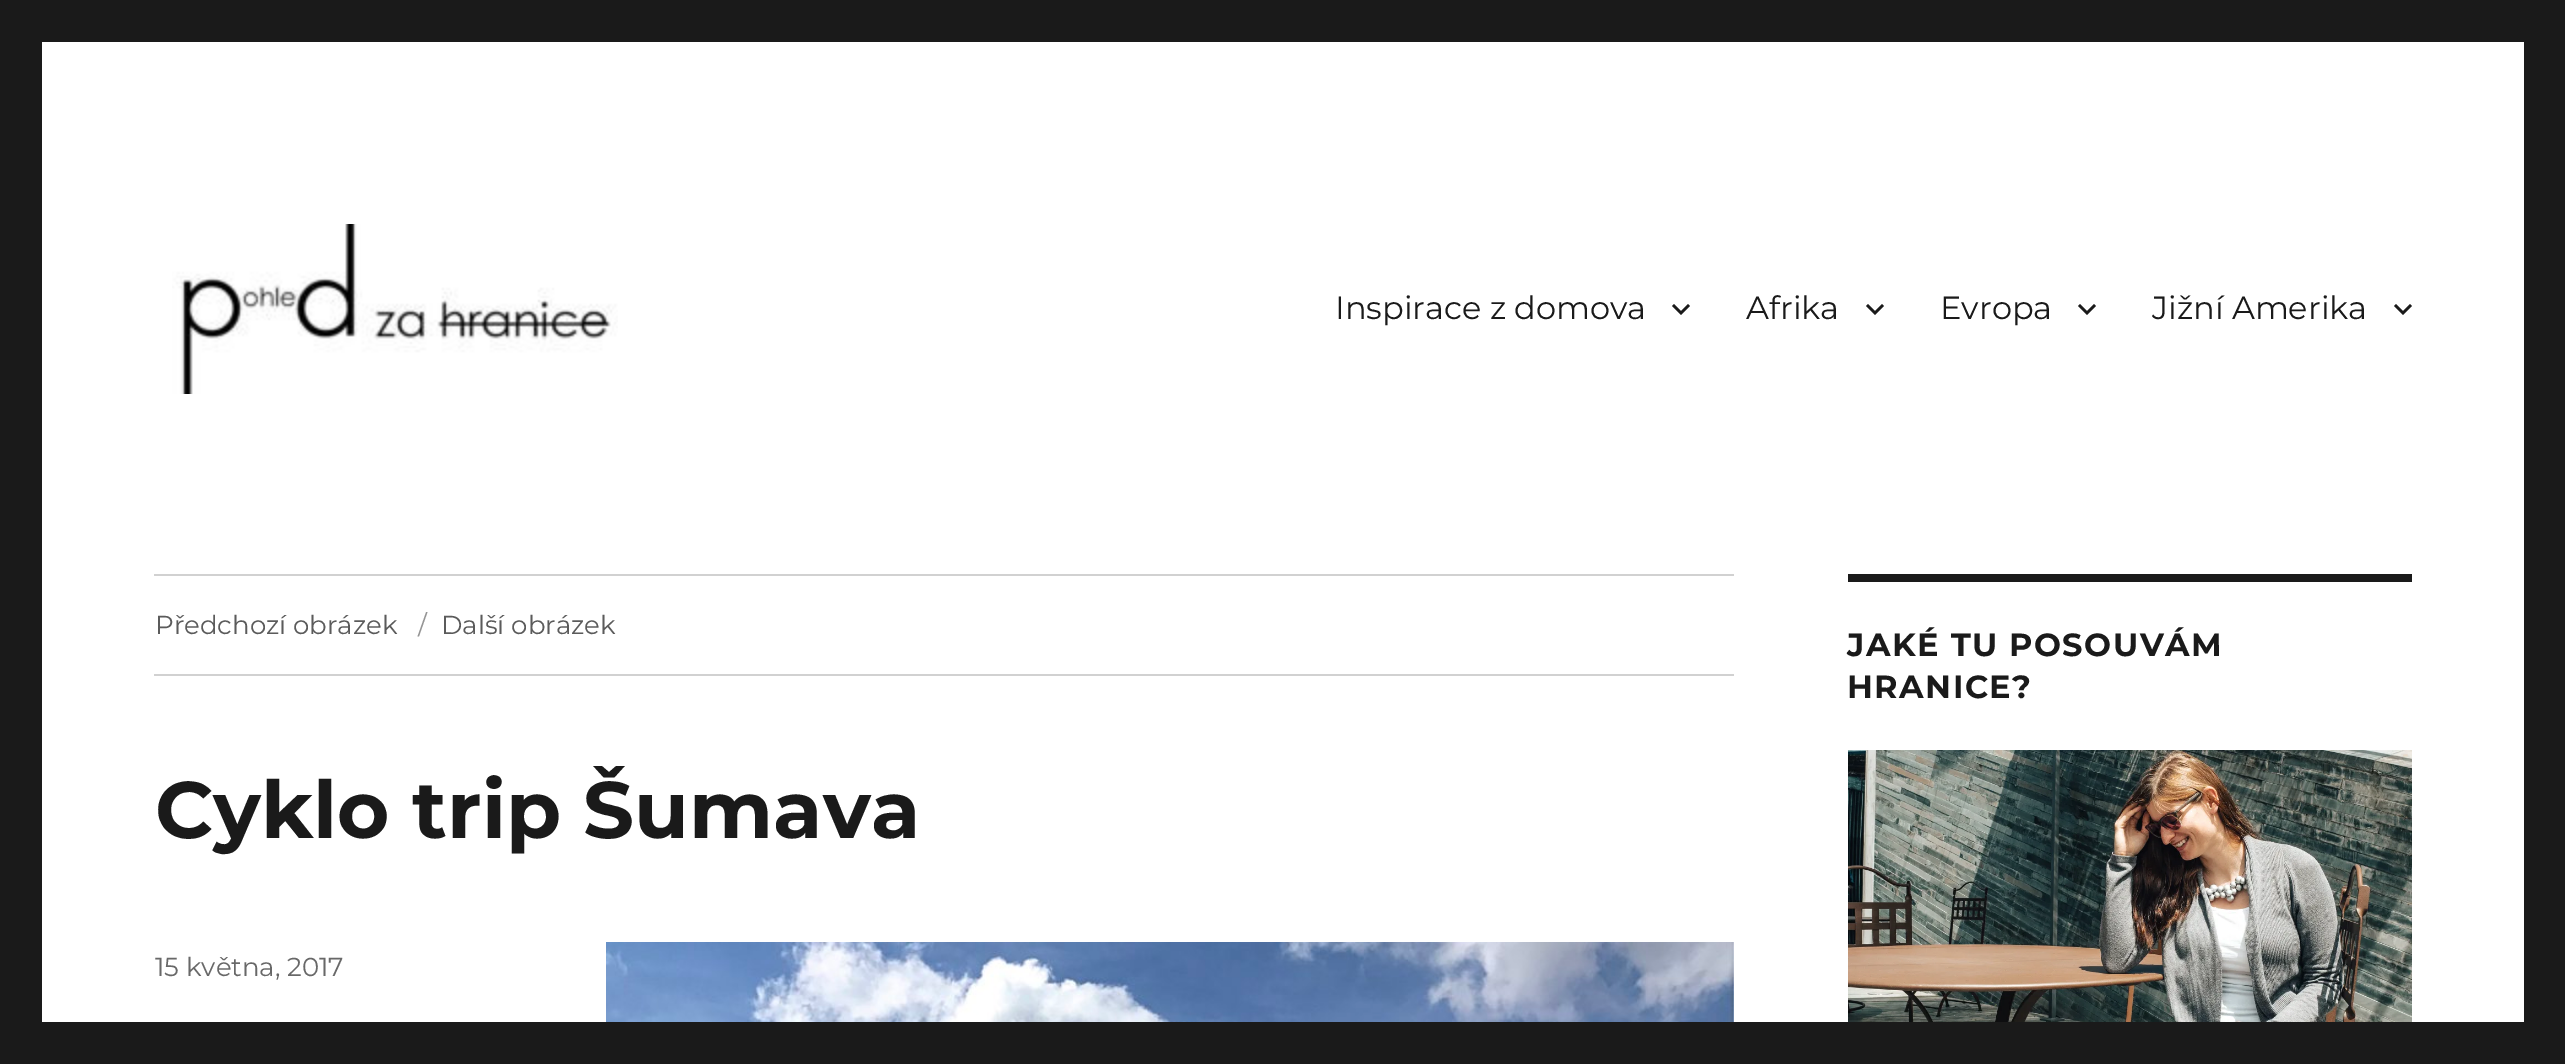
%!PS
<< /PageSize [2565 1064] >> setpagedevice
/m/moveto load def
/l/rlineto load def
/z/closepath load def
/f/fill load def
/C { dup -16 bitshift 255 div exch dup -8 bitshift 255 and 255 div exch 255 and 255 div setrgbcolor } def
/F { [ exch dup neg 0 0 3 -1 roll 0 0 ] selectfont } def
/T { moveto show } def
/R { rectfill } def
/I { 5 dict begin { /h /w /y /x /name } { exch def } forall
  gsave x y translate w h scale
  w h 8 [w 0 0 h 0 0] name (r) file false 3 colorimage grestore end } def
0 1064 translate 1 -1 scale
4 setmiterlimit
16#1A1A1A C
0 0 2565 1064 R
16#FFFFFF C
42 42 2482 980 R
(1.rgb) 172 224 446 170 I
/Montserrat-Regular 32 F
16#1A1A1A C
(Inspirace z domova) 1335 319 T
1688 304 m 2 2 l -9 9 l -9 -9 l 2 -2 l 7 7 l z f
(Afrika) 1746 319 T
1882 304 m 2 2 l -9 9 l -9 -9 l 2 -2 l 7 7 l z f
(Evropa) 1940 319 T
2094 304 m 2 2 l -9 9 l -9 -9 l 2 -2 l 7 7 l z f
(Jižní Amerika) 2152 319 T
2410 304 m 2 2 l -9 9 l -9 -9 l 2 -2 l 7 7 l z f
16#D1D1D1 C
154 574 1580 2 R
154 674 1580 2 R
/Montserrat-Regular 26 F
16#5B5B5B C
(Předchozí obrázek) 155 634 T
16#959595 C
(/) 418 634 T
16#5B5B5B C
(Další obrázek) 441 634 T
/Montserrat-Bold 80 F
16#1A1A1A C
(Cyklo trip Šumava) 155 838 T
/Montserrat-Regular 26 F
16#686868 C
(15 května, 2017) 155 976 T
(2.rgb) 606 942 1128 80 I
16#1A1A1A C
1848 574 564 8 R
/Montserrat-Bold 32 F
1847 656 m 1.5 0 (JAKÉ TU POSOUVÁM) ashow
1847 698 m 1.5 0 (HRANICE?) ashow
(3.rgb) 1848 750 564 272 I
showpage
